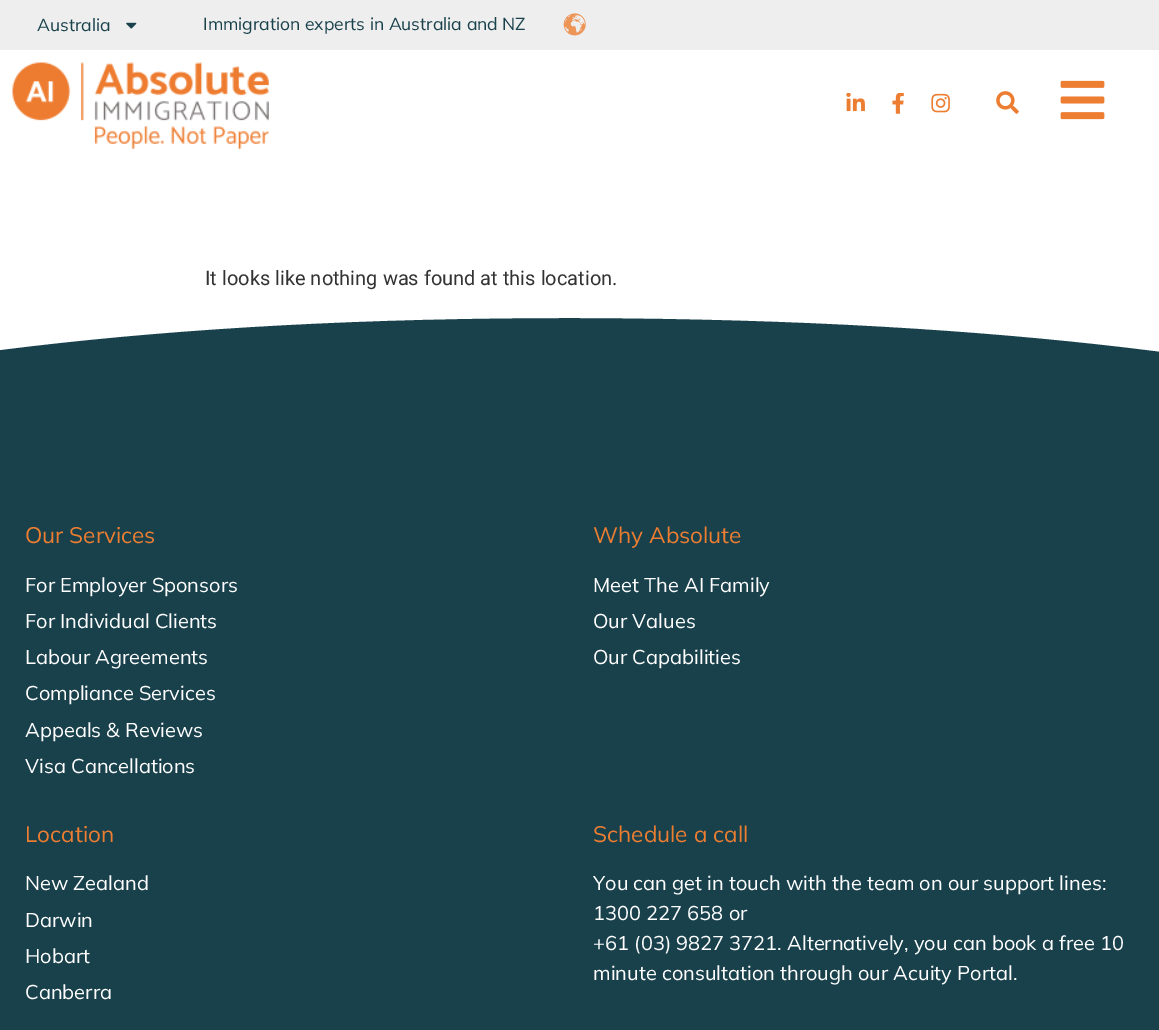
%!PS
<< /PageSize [1159 1030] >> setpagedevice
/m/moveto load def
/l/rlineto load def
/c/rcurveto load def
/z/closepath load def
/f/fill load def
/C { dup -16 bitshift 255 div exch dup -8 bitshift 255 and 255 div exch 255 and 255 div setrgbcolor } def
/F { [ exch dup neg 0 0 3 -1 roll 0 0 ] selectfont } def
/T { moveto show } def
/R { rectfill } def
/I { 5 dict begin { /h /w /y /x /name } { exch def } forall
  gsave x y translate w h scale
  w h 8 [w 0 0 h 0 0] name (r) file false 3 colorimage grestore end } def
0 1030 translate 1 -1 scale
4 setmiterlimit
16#FFFFFF C
0 0 1159 1030 R
16#EEEEEE C
0 0 1159 50 R
/Mulish-Regular 17.5 F
16#19414C C
(Australia) 37 31 T
(1.rgb) 126 22 11 7 I
(Immigration experts in Australia and NZ) 203 30 T
(2.rgb) 563 13 23 23 I
(3.rgb) 12 62 257 87 I
(4.rgb) 846 93 19 19 I
(5.rgb) 892 93 12 21 I
(6.rgb) 931 93 19 20 I
(7.rgb) 996 91 23 23 I
(8.rgb) 1060 80 45 40 I
/Roboto-Regular 20 F
16#333333 C
(It looks like nothing was found at this location.) 205 285 T
16#19414C C
0 318 1159 712 R
16#FFFFFF C
580 318 m 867 2 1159 179 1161 225 c 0 -232 l -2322 0 l 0 230 l 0 -43 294 -225 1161 -223 c z f
/Mulish-Regular 22.5 F
16#ED7D31 C
(Our Services) 25 543 T
/Mulish-Regular 20 F
16#FFFFFF C
(For Employer Sponsors) 25 592 T
(For Individual Clients) 25 628 T
(Labour Agreements) 25 664 T
(Compliance Services) 25 700 T
(Appeals & Reviews) 25 737 T
(Visa Cancellations) 25 773 T
/Mulish-Regular 22.5 F
16#ED7D31 C
(Why Absolute) 593 543 T
/Mulish-Regular 20 F
16#FFFFFF C
(Meet The AI Family) 593 592 T
(Our Values) 593 628 T
(Our Capabilities) 593 664 T
/Mulish-Regular 22.5 F
16#ED7D31 C
(Location) 25 842 T
/Mulish-Regular 20 F
16#FFFFFF C
(New Zealand) 25 890 T
(Darwin) 25 927 T
(Hobart) 25 963 T
(Canberra) 25 999 T
/Mulish-Regular 22.5 F
16#ED7D31 C
(Schedule a call) 593 842 T
/Mulish-Regular 20 F
16#FFFFFF C
(You can get in touch with the team on our support lines:) 593 890 T
(1300 227 658 or) 593 920 T
(+61 \(03\) 9827 3721. Alternatively, you can book a free 10) 593 950 T
(minute consultation through our Acuity Portal.) 593 980 T
showpage
